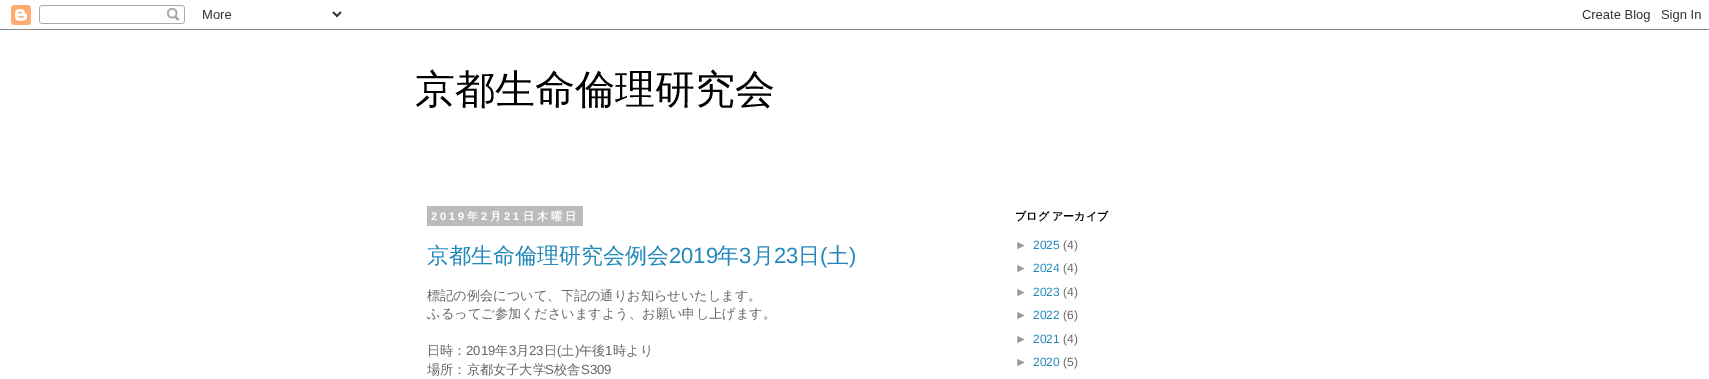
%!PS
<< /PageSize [1709 379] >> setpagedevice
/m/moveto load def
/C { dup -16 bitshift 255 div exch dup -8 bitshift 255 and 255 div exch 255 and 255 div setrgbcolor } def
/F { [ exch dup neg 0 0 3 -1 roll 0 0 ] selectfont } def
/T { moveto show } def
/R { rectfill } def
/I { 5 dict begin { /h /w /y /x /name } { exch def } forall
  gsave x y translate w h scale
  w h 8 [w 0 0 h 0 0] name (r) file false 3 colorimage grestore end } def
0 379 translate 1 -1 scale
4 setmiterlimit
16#FFFFFF C
0 0 1709 379 R
(1.rgb) 0 5 1709 25 I
/WenQuanYiZenHei-Medium 40 F
16#000000 C
(京都生命倫理研究会) 415 103 T
16#BBBBBB C
427 206 156 20 R
/LiberationSans-Bold 11 F
16#FFFFFF C
431 220 m 3 0 (2019) ashow
/WenQuanYiZenHei-Bold 11 F
467 220 m 3 0 (年) ashow
/LiberationSans-Bold 11 F
481 220 m 3 0 (2) ashow
/WenQuanYiZenHei-Bold 11 F
490 220 m 3 0 (月) ashow
/LiberationSans-Bold 11 F
504 220 m 3 0 (21) ashow
/WenQuanYiZenHei-Bold 11 F
523 220 m 3 0 (日木曜日) ashow
/WenQuanYiZenHei-Medium 22 F
16#2288BB C
(京都生命倫理研究会例会) 427 263 T
/LiberationSans-Regular 22 F
(2019) 669 263 T
/WenQuanYiZenHei-Medium 22 F
(年) 717 263 T
/LiberationSans-Regular 22 F
(3) 739 263 T
/WenQuanYiZenHei-Medium 22 F
(月) 752 263 T
/LiberationSans-Regular 22 F
(23) 774 263 T
/WenQuanYiZenHei-Medium 22 F
(日) 798 263 T
/LiberationSans-Regular 22 F
(\() 820 263 T
/WenQuanYiZenHei-Medium 22 F
(土) 827 263 T
/LiberationSans-Regular 22 F
(\)) 849 263 T
/WenQuanYiZenHei-Medium 13.2 F
16#666666 C
(標記の例会について、下記の通りお知らせいたします。) 427 300 T
(ふるってご参加くださいますよう、お願い申し上げます。) 427 318 T
(日時：) 427 355 T
/LiberationSans-Regular 13.2 F
(2019) 466 355 T
/WenQuanYiZenHei-Medium 13.2 F
(年) 495 355 T
/LiberationSans-Regular 13.2 F
(3) 509 355 T
/WenQuanYiZenHei-Medium 13.2 F
(月) 516 355 T
/LiberationSans-Regular 13.2 F
(23) 529 355 T
/WenQuanYiZenHei-Medium 13.2 F
(日) 544 355 T
/LiberationSans-Regular 13.2 F
(\() 557 355 T
/WenQuanYiZenHei-Medium 13.2 F
(土) 561 355 T
/LiberationSans-Regular 13.2 F
(\)) 575 355 T
/WenQuanYiZenHei-Medium 13.2 F
(午後) 579 355 T
/LiberationSans-Regular 13.2 F
(1) 605 355 T
/WenQuanYiZenHei-Medium 13.2 F
(時より) 613 355 T
(場所：京都女子大学) 427 374 T
/LiberationSans-Regular 13.2 F
(S) 545 374 T
/WenQuanYiZenHei-Medium 13.2 F
(校舎) 554 374 T
/LiberationSans-Regular 13.2 F
(S309) 581 374 T
/WenQuanYiZenHei-Bold 11 F
16#000000 C
(ブログ アーカイブ) 1015 220 T
/LiberationSans-Regular 12 F
16#999999 C
(►) 1015 249 T
16#2288BB C
(2025) 1033 249 T
16#666666 C
(\(4\)) 1063 249 T
16#999999 C
(►) 1015 272 T
16#2288BB C
(2024) 1033 272 T
16#666666 C
(\(4\)) 1063 272 T
16#999999 C
(►) 1015 296 T
16#2288BB C
(2023) 1033 296 T
16#666666 C
(\(4\)) 1063 296 T
16#999999 C
(►) 1015 319 T
16#2288BB C
(2022) 1033 319 T
16#666666 C
(\(6\)) 1063 319 T
16#999999 C
(►) 1015 343 T
16#2288BB C
(2021) 1033 343 T
16#666666 C
(\(4\)) 1063 343 T
16#999999 C
(►) 1015 366 T
16#2288BB C
(2020) 1033 366 T
16#666666 C
(\(5\)) 1063 366 T
showpage
